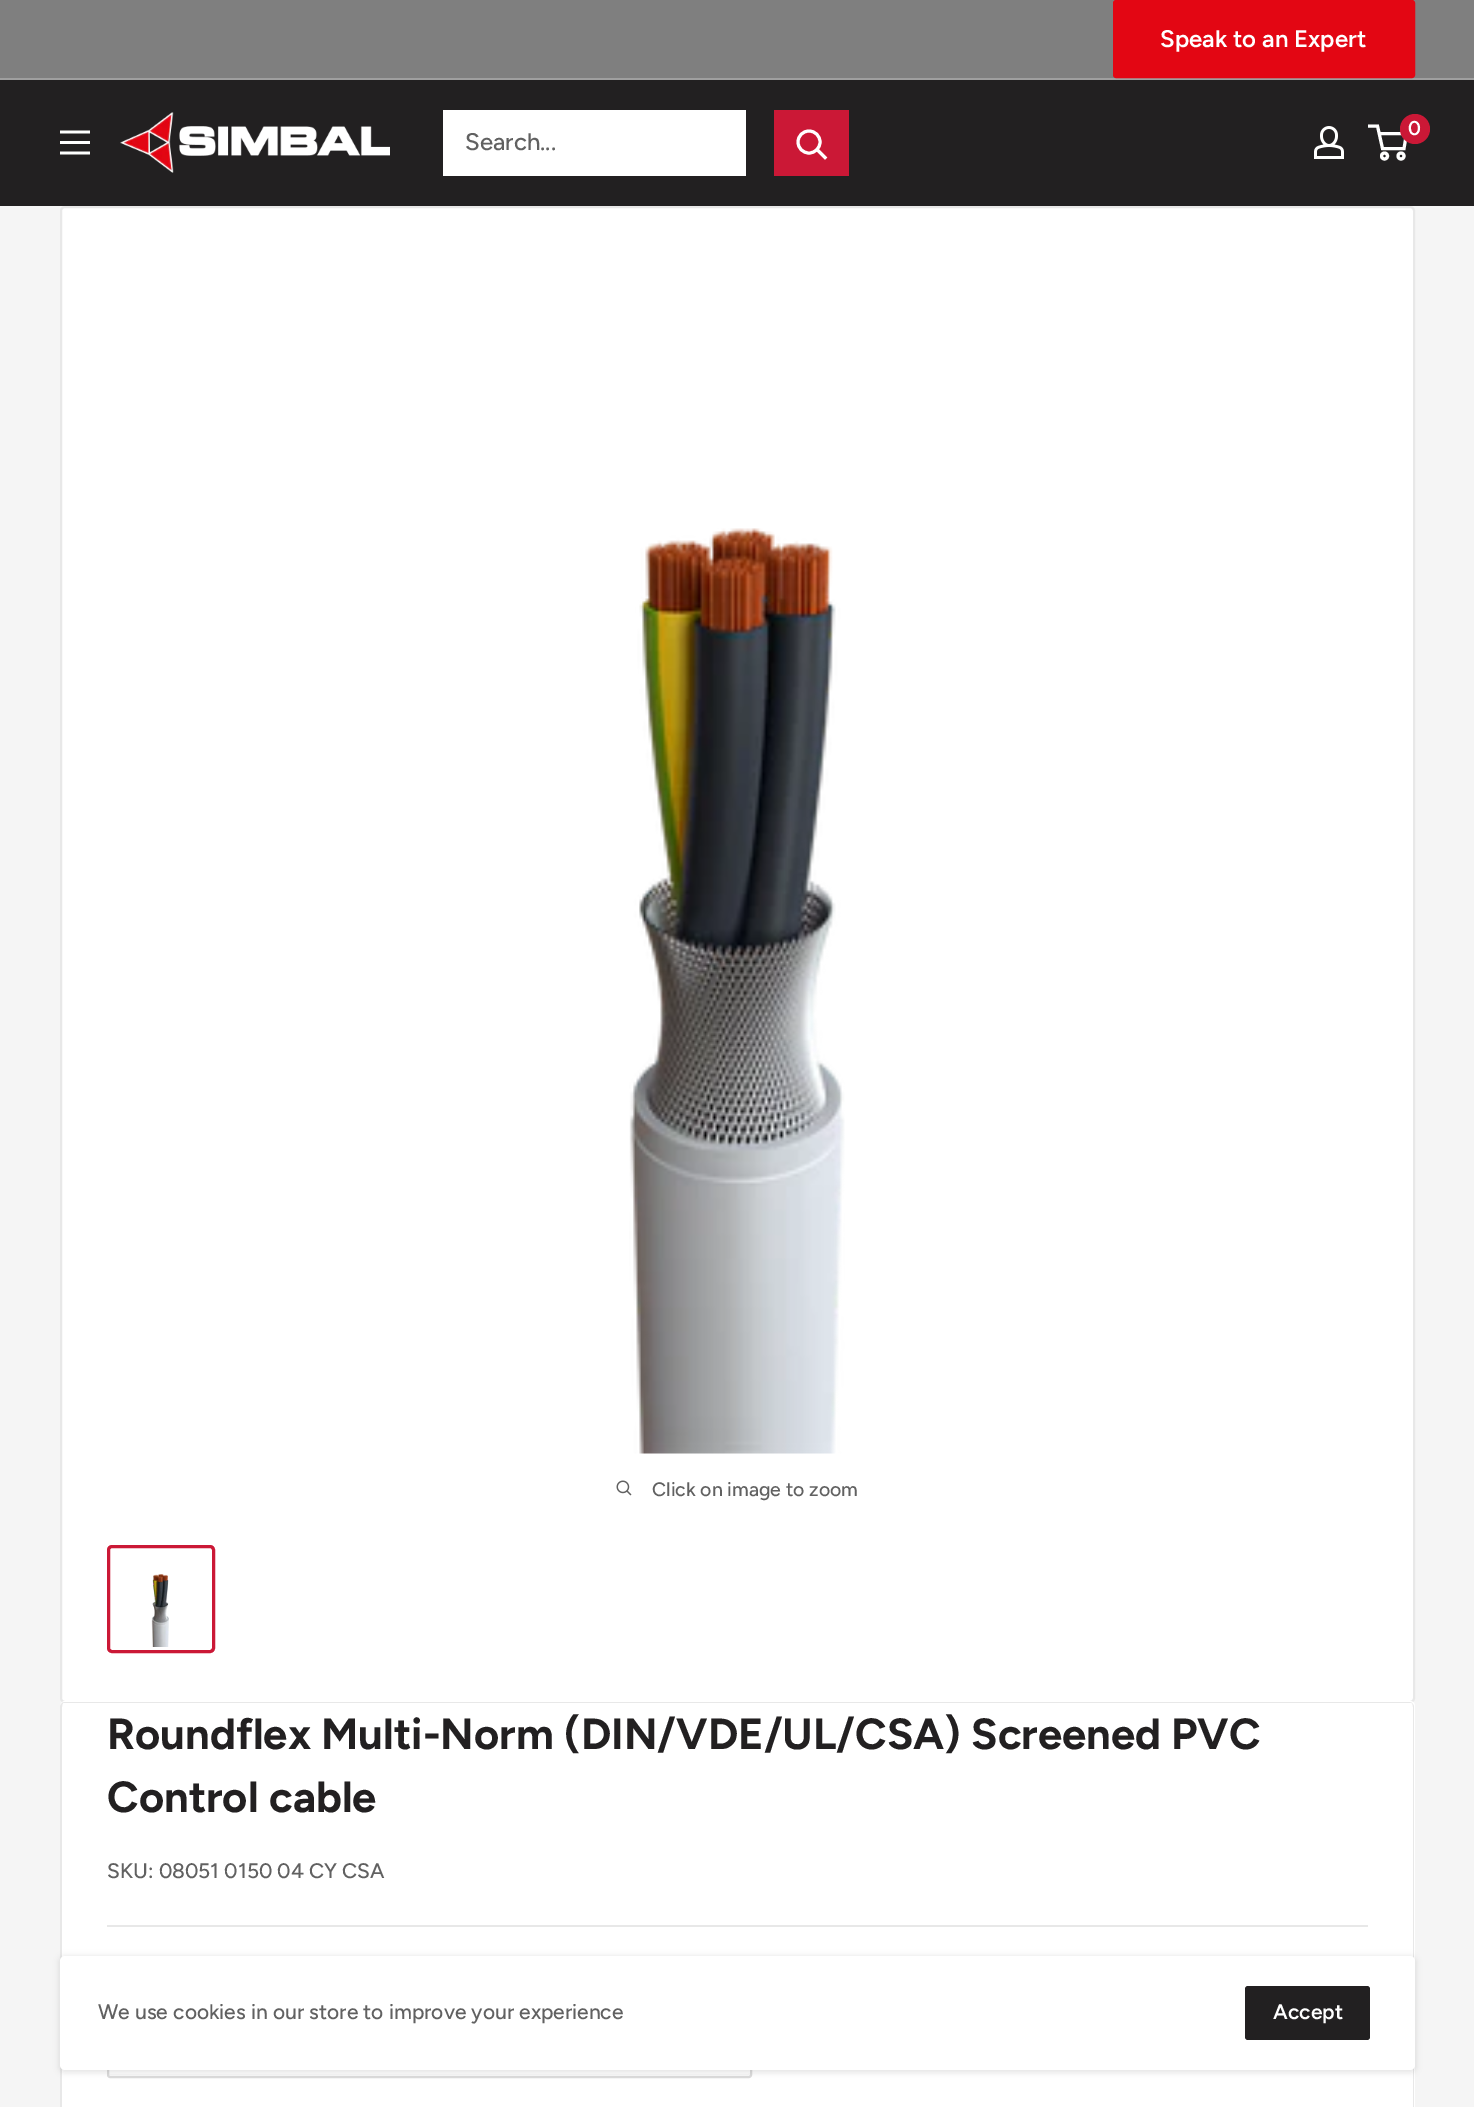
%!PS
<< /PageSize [1474 2107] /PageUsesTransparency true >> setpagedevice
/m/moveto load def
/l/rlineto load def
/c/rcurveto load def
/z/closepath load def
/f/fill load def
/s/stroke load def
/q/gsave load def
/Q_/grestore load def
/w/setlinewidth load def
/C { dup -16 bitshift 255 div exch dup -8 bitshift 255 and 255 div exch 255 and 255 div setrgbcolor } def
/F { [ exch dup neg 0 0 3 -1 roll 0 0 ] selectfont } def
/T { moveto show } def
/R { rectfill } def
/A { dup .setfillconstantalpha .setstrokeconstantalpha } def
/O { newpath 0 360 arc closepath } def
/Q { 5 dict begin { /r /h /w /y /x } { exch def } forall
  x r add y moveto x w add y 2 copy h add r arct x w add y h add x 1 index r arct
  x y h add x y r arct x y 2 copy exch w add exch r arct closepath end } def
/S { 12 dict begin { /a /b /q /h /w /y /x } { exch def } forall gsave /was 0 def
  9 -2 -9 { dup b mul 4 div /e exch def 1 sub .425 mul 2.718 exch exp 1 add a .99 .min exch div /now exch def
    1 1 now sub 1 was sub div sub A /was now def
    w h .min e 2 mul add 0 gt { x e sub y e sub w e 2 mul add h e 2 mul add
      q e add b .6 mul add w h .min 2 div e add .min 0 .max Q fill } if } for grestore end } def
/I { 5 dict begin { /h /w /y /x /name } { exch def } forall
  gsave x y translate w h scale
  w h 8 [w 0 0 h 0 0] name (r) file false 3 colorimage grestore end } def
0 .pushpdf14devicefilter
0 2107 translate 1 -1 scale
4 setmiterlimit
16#F5F5F5 C
0 0 1474 2107 R
16#7F7F7F C
0 0 1474 78 R
16#9F9F9F C
0 78 1474 2 R
16#E30613 C
1114.5 1.5 299 75 1.5 Q q f Q_
3 w
s
/Figtree-SemiBold 24 F
16#FFFFFF C
(Speak to an Expert) 1160 47 T
16#222021 C
0 80 1474 126 R
(1.rgb) 120 112 270 61 I
(2.rgb) 1314 126 30 33 I
16#FFFFFF C
1384.5 156 3 O s
1401 156 3 O s
1379 133.5 m 27.5 0 l -2.5 15 l -21.5 0 l -5 -22.5 l -9.5 0 l s
16#CB1836 C
1415 129 15 O f
/Figtree-SemiBold 20 F
16#FFFFFF C
(0) 1408 135 T
(3.rgb) 60 130 30 25 I
443 110 303 66 R
/Figtree-Medium 24 F
16#616161 C
(Search...) 465 150 T
16#CB1836 C
774 110 75 66 R
16#FFFFFF C
2 setlinecap
825 157.5 m -7.5 -7.5 l s
0 setlinecap
809 142 11 O s
61 207 1353 1495 4 Q q f Q_
16#E8E8E8 C
2 w
s
(4.rgb) 629 528 216 926 I
(5.rgb) 616 1480 16 16 I
/Figtree-Medium 19.5 F
16#616161 C
(Click on image to zoom) 652 1496 T
16#CB1836 C
3 w
108.5 1546.5 105 105 3.5 Q s
(6.rgb) 151 1574 18 73 I
16#FFFFFF C
65 1701 m -3 0 -5 3 -5 6 c 0 -2 2 -5 4 -5 c 1346 0 l 2 0 4 3 4 5 c 0 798 l 1 -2 l 0 -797 l 0 -3 -2 -5 -5 -5 c z f
60 1703 1355 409 5 Q f
16#E8E8E8 C
64 1702 m 1346 0 l 2 0 4 3 4 5 c 0 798 l 0 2 -2 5 -4 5 c -1346 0 l -2 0 -4 -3 -4 -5 c 0 -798 l 0 -2 2 -5 4 -5 c z 64 1702 m 1346 0 l 2 0 3 3 3 5 c 0 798 l 0 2 -1 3 -3 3 c -1346 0 l -1 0 -2 -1 -2 -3 c 0 -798 l 0 -2 1 -5 2 -5 c z eofill
/Figtree-Bold 43.5 F
16#222021 C
(Roundflex Multi-Norm \(DIN/VDE/UL/CSA\) Screened PVC) 107 1749 T
(Control cable) 107 1812 T
/Figtree-Medium 21 F
16#616161 C
(SKU: 08051 0150 04 CY CSA) 107 1878 T
16#E8E8E8 C
107 1925 1261 2 R
16#F8F8F8 C
108 2073 m 0 3 l 2 0 l 638 0 l 2 -1 l 0 -2 l 0 1 -1 1 -2 1 c -638 0 l -1 0 -2 0 -2 -1 c z f
16#DBDBDB C
2 w
108 2007 643 70 2 Q s
16#000000 C
59 1956 1357 117 6 3 .1 S
16#FFFFFF C
60 1956 1355 114 5 Q f
16#616161 C
(We use cookies in our store to improve your experience) 98 2019 T
16#222021 C
1245 1986 125 54 3 Q f
/Figtree-SemiBold 21 F
16#FFFFFF C
(Accept) 1273 2019 T
.poppdf14devicefilter showpage
